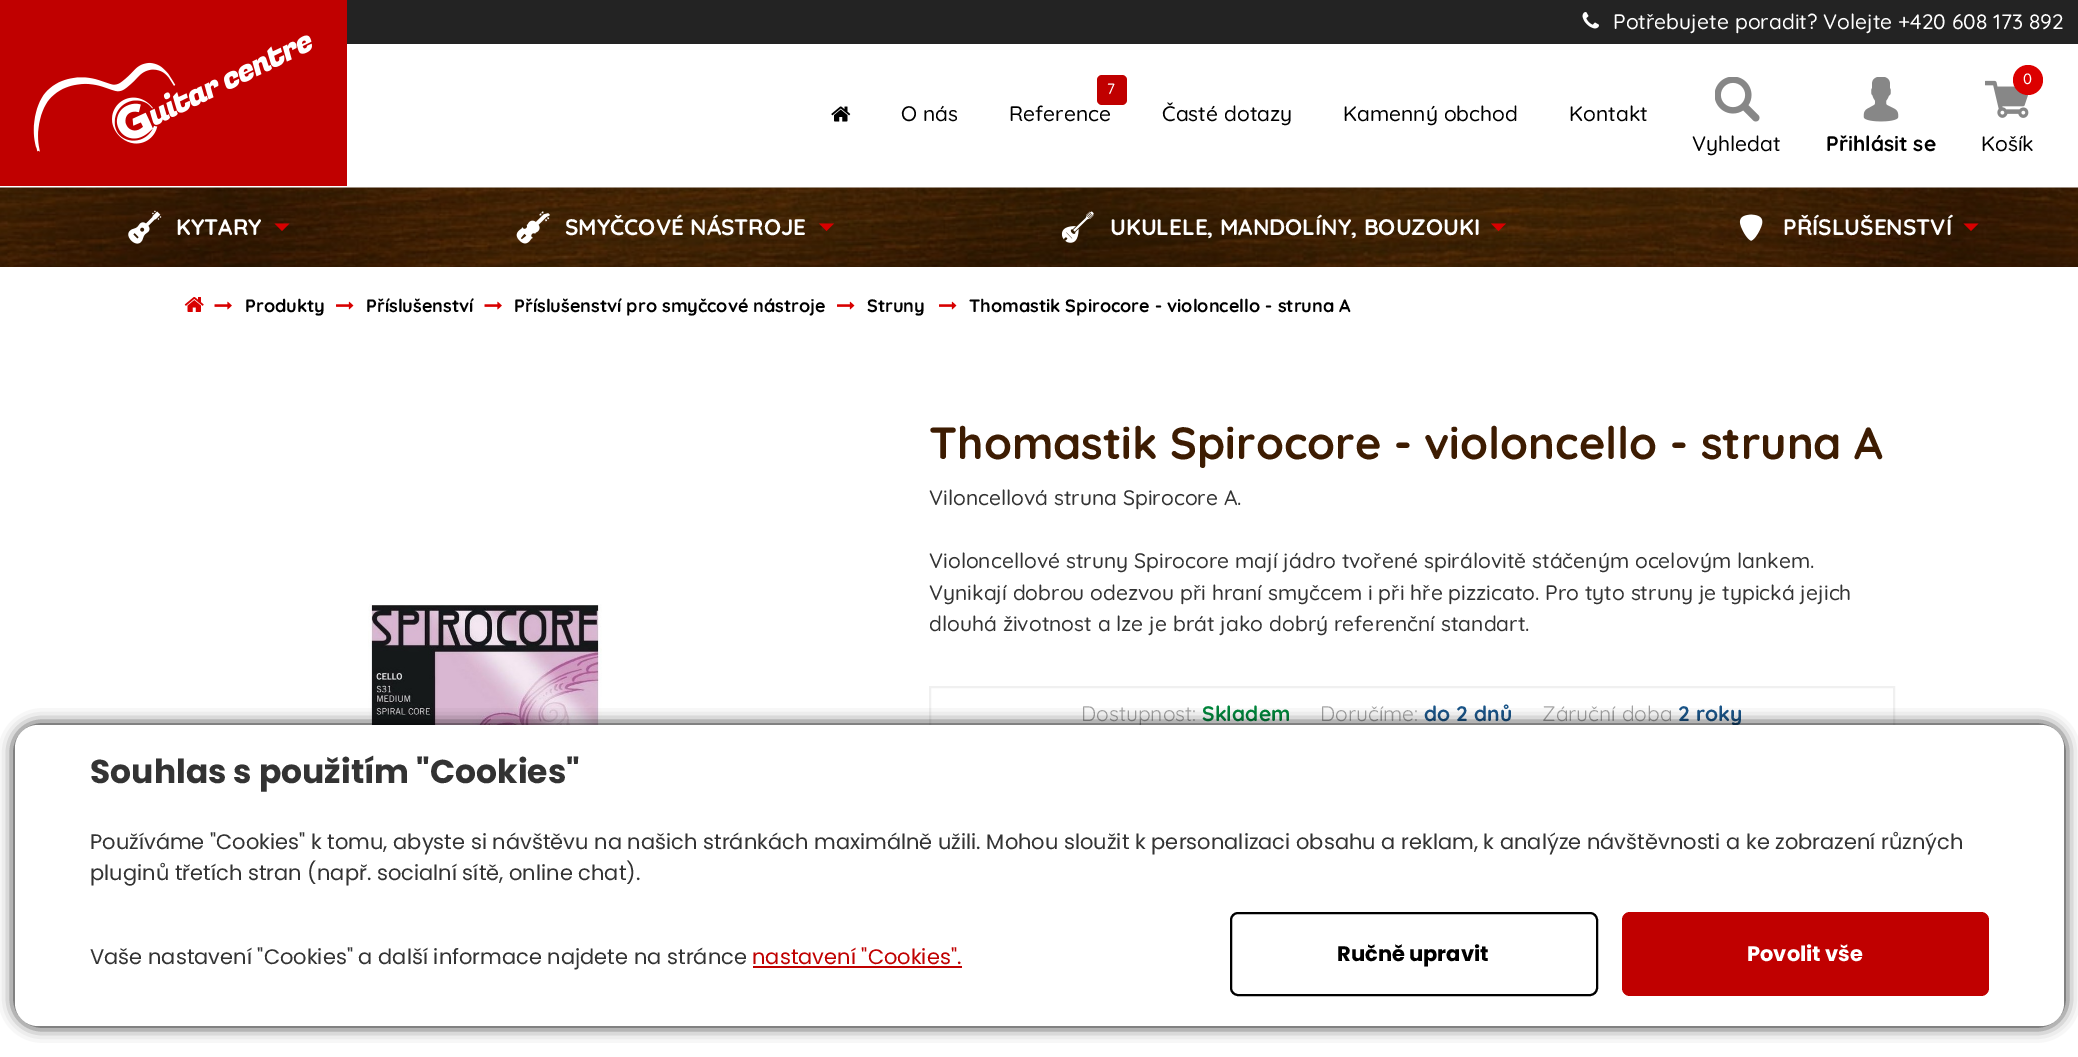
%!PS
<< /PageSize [2078 1057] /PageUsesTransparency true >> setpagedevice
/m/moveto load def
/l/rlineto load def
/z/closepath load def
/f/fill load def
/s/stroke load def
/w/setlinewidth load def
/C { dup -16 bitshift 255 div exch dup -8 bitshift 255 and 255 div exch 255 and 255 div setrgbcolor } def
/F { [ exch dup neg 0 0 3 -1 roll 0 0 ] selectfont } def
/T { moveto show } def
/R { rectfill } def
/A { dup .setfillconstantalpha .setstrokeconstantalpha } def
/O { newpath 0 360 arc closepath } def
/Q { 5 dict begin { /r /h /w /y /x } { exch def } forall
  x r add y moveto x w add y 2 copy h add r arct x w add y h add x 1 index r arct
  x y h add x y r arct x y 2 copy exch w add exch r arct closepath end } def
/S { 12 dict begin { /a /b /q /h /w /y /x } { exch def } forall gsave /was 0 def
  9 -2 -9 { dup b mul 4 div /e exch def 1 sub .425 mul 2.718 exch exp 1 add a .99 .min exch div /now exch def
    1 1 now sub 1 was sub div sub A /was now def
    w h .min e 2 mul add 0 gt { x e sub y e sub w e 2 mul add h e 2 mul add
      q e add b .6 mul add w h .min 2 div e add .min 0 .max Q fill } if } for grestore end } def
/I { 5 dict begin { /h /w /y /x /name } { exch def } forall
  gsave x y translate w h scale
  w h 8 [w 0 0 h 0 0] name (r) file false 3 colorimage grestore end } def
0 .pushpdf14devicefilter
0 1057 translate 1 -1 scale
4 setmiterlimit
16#FFFFFF C
0 0 2078 1057 R
16#C00000 C
0 0 347 186 R
(1.rgb) 33 35 279 117 I
16#232323 C
347 0 1731 44 R
(2.rgb) 1582 12 17 17 I
/Quicksand-Medium 21 F
16#FFFFFF C
(Potřebujete poradit? Volejte +420 608 173 892) 1613 29 T
(3.rgb) 831 106 20 16 I
16#000000 C
(O nás) 901 121 T
16#C00000 C
1097 75 30 30 5 Q f
/Quicksand-Medium 15 F
16#FFFFFF C
(7) 1107 94 T
/Quicksand-Medium 21 F
16#000000 C
(Reference) 1009 121 T
(Časté dotazy) 1162 121 T
(Kamenný obchod) 1343 121 T
(Kontakt) 1569 121 T
(4.rgb) 1715 77 45 45 I
(Vyhledat) 1692 151 T
(5.rgb) 1863 77 36 45 I
/Quicksand-Bold 21 F
(Přihlásit se) 1826 151 T
(6.rgb) 1985 80 44 38 I
16#DC0000 C
2028 80 15 O f
/Quicksand-Medium 15 F
16#FFFFFF C
(0) 2023 84 T
/Quicksand-Medium 21 F
16#000000 C
(Košík) 1981 151 T
(7.rgb) 0 187 2078 80 I
(8.rgb) 128 210 34 34 I
/Quicksand-Bold 22.5 F
16#FFFFFF C
(KYTARY) 176 235 T
16#D80000 C
274.5 223.5 m 15 0 l -7.5 7.5 l z f
(9.rgb) 516 211 34 33 I
16#FFFFFF C
(SMYČCOVÉ NÁSTROJE) 565 235 T
16#D80000 C
819 223.5 m 15 0 l -7.5 7.5 l z f
(10.rgb) 1061 211 33 32 I
16#FFFFFF C
(UKULELE, MANDOLÍNY, BOUZOUKI) 1110 235 T
16#D80000 C
1491 223.5 m 15 0 l -7.5 7.5 l z f
(11.rgb) 1739 214 24 27 I
16#FFFFFF C
(PŘÍSLUŠENSTVÍ) 1783 235 T
16#D80000 C
1963.5 223.5 m 15 0 l -7.5 7.5 l z f
(12.rgb) 184 297 20 15 I
(13.rgb) 214 301 18 9 I
/Quicksand-Bold 18 F
16#000000 C
(Produkty) 245 312 T
(14.rgb) 336 301 18 9 I
(Příslušenství) 366 312 T
(13.rgb) 484 301 18 9 I
(Příslušenství pro smyčcové nástroje) 514 312 T
(14.rgb) 837 301 18 9 I
(Struny) 867 312 T
(14.rgb) 939 301 18 9 I
(Thomastik Spirocore - violoncello - struna A) 969 312 T
(15.rgb) 368 604 234 121 I
/Quicksand-Bold 45 F
16#3D1C02 C
(Thomastik Spirocore - violoncello - struna A) 929 459 T
/Quicksand-Medium 21 F
16#333333 C
(Viloncellová struna Spirocore A.) 929 505 T
(Violoncellové struny Spirocore mají jádro tvořené spirálovitě stáčeným ocelovým lankem.) 929 568 T
(Vynikají dobrou odezvou při hraní smyčcem i při hře pizzicato. Pro tyto struny je typická jejich) 929 600 T
(dlouhá životnost a lze je brát jako dobrý referenční standart.) 929 631 T
16#F0F0F0 C
2 w
930 687 964 56 rectstroke
/Quicksand-Regular 21 F
16#A3A3A3 C
(Dostupnost:) 1081 721 T
/Quicksand-Bold 21 F
16#00853B C
(Skladem) 1202 721 T
/Quicksand-Regular 21 F
16#A3A3A3 C
(Doručíme:) 1320 721 T
/Quicksand-Bold 21 F
16#1A5588 C
(do 2 dnů) 1424 721 T
/Quicksand-Regular 21 F
16#A3A3A3 C
(Záruční doba) 1542 721 T
/Quicksand-Bold 21 F
16#1A5588 C
(2 roky) 1678 721 T
16#000000 C
15 725 2049 301 23 7.5 1 S
16#FFFFFF C
15 725 2049 301 23 Q f
/Poppins-Bold 33 F
16#333333 C
(Souhlas s použitím "Cookies") 90 783 T
/Poppins-Regular 21 F
(Používáme "Cookies" k tomu, abyste si návštěvu na našich stránkách maximálně užili. Mohou sloužit k personalizaci obsahu a reklam, k analýze návštěvnosti a ke zobrazení různých) 90 849 T
(pluginů třetích stran \(např. socialní sítě, online chat\).) 90 880 T
(Vaše nastavení "Cookies" a další informace najdete na stránce) 90 964 T
16#C00000 C
(nastavení "Cookies".) 752 964 T
753 966 209 2 R
16#000000 C
1231 913 366 82 7 Q s
/Poppins-Bold 21 F
(Ručně upravit) 1337 961 T
16#C00000 C
1622 912 367 84 8 Q f
16#FFFFFF C
(Povolit vše) 1747 961 T
.poppdf14devicefilter showpage
